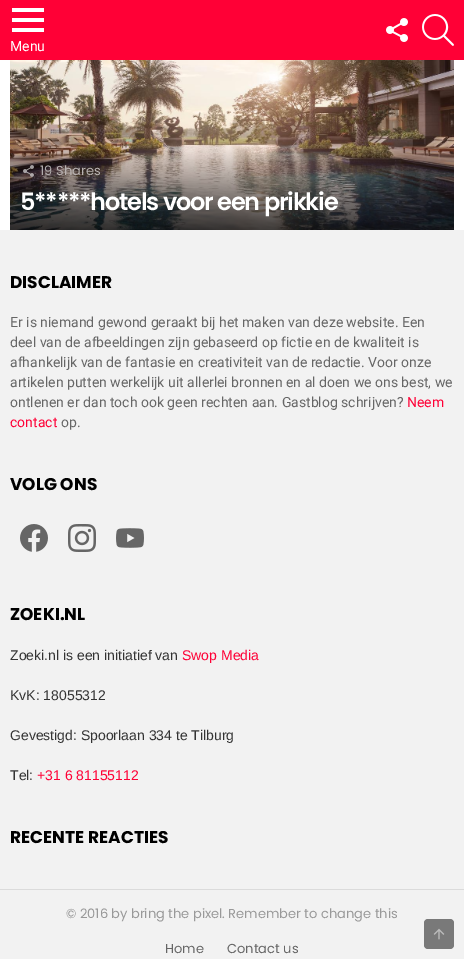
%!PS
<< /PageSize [464 959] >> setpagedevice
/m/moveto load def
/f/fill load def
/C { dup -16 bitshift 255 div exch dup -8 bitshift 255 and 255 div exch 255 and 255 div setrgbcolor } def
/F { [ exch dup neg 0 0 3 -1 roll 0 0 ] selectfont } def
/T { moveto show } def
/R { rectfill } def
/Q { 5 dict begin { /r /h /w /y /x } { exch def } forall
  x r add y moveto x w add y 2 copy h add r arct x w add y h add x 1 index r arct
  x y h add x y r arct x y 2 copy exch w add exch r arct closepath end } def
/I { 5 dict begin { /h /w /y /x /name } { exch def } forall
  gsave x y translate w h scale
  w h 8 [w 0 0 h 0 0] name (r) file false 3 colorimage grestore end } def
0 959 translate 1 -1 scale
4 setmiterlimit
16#FFFFFF C
0 0 464 959 R
16#FF0036 C
0 0 464 60 R
(1.rgb) 12 8 32 24 I
/Roboto-Regular 14 F
16#FFFFFF C
(Menu) 10 51 T
(2.rgb) 386 18 22 24 I
(3.rgb) 422 14 32 32 I
(4.rgb) 10 60 444 170 I
(5.rgb) 23 165 11 12 I
/Poppins-Regular 13 F
16#B0ABAC C
(19) 40 175 T
16#B9B3B2 C
(Shares) 56 175 T
/Poppins-SemiBold 24 F
16#FFFFFF C
20 210 m -1.2 0 (5*****hotels voor een prikkie) ashow
16#F2F2F2 C
0 230 464 659 R
/Poppins-Bold 17 F
16#000000 C
(DISCLAIMER) 10 288 T
/Roboto-Regular 14 F
16#666666 C
(Er is niemand gewond geraakt bij het maken van deze website. Een) 10 327 T
(deel van de afbeeldingen zijn gebaseerd op fictie en de kwaliteit is) 10 347 T
(afhankelijk van de fantasie en creativiteit van de redactie. Voor onze) 10 367 T
(artikelen putten werkelijk uit allerlei bronnen en al doen we ons best, we) 10 387 T
(ontlenen er dan toch ook geen rechten aan. Gastblog schrijven?) 10 407 T
16#FF0036 C
(Neem) 407 407 T
(contact) 10 427 T
16#666666 C
(op.) 61 427 T
/Poppins-Bold 17 F
16#000000 C
(VOLG ONS) 10 490 T
(6.rgb) 20 524 28 28 I
(7.rgb) 68 524 28 28 I
(8.rgb) 116 528 28 20 I
(ZOEKI.NL) 10 620 T
/LiberationSans-Regular 14 F
16#333333 C
(Zoeki.nl is een initiatief van) 10 660 T
16#FF0036 C
(Swop Media) 182 660 T
16#333333 C
(KvK: 18055312) 10 700 T
(Gevestigd: Spoorlaan 334 te Tilburg) 10 740 T
(Tel:) 10 780 T
16#FF0036 C
(+31 6 81155112) 37 780 T
/Poppins-Bold 17 F
16#000000 C
(RECENTE REACTIES) 10 843 T
16#DBDBDB C
0 889 464 1 R
16#F2F2F2 C
0 890 464 69 R
/Poppins-Regular 13 F
16#999999 C
(© 2016 by bring the pixel. Remember to change this) 66 918 T
16#666666 C
(Home) 165 953 T
(Contact us) 227 953 T
16#797979 C
424 919 30 30 4 Q f
(9.rgb) 433 928 12 12 I
showpage
